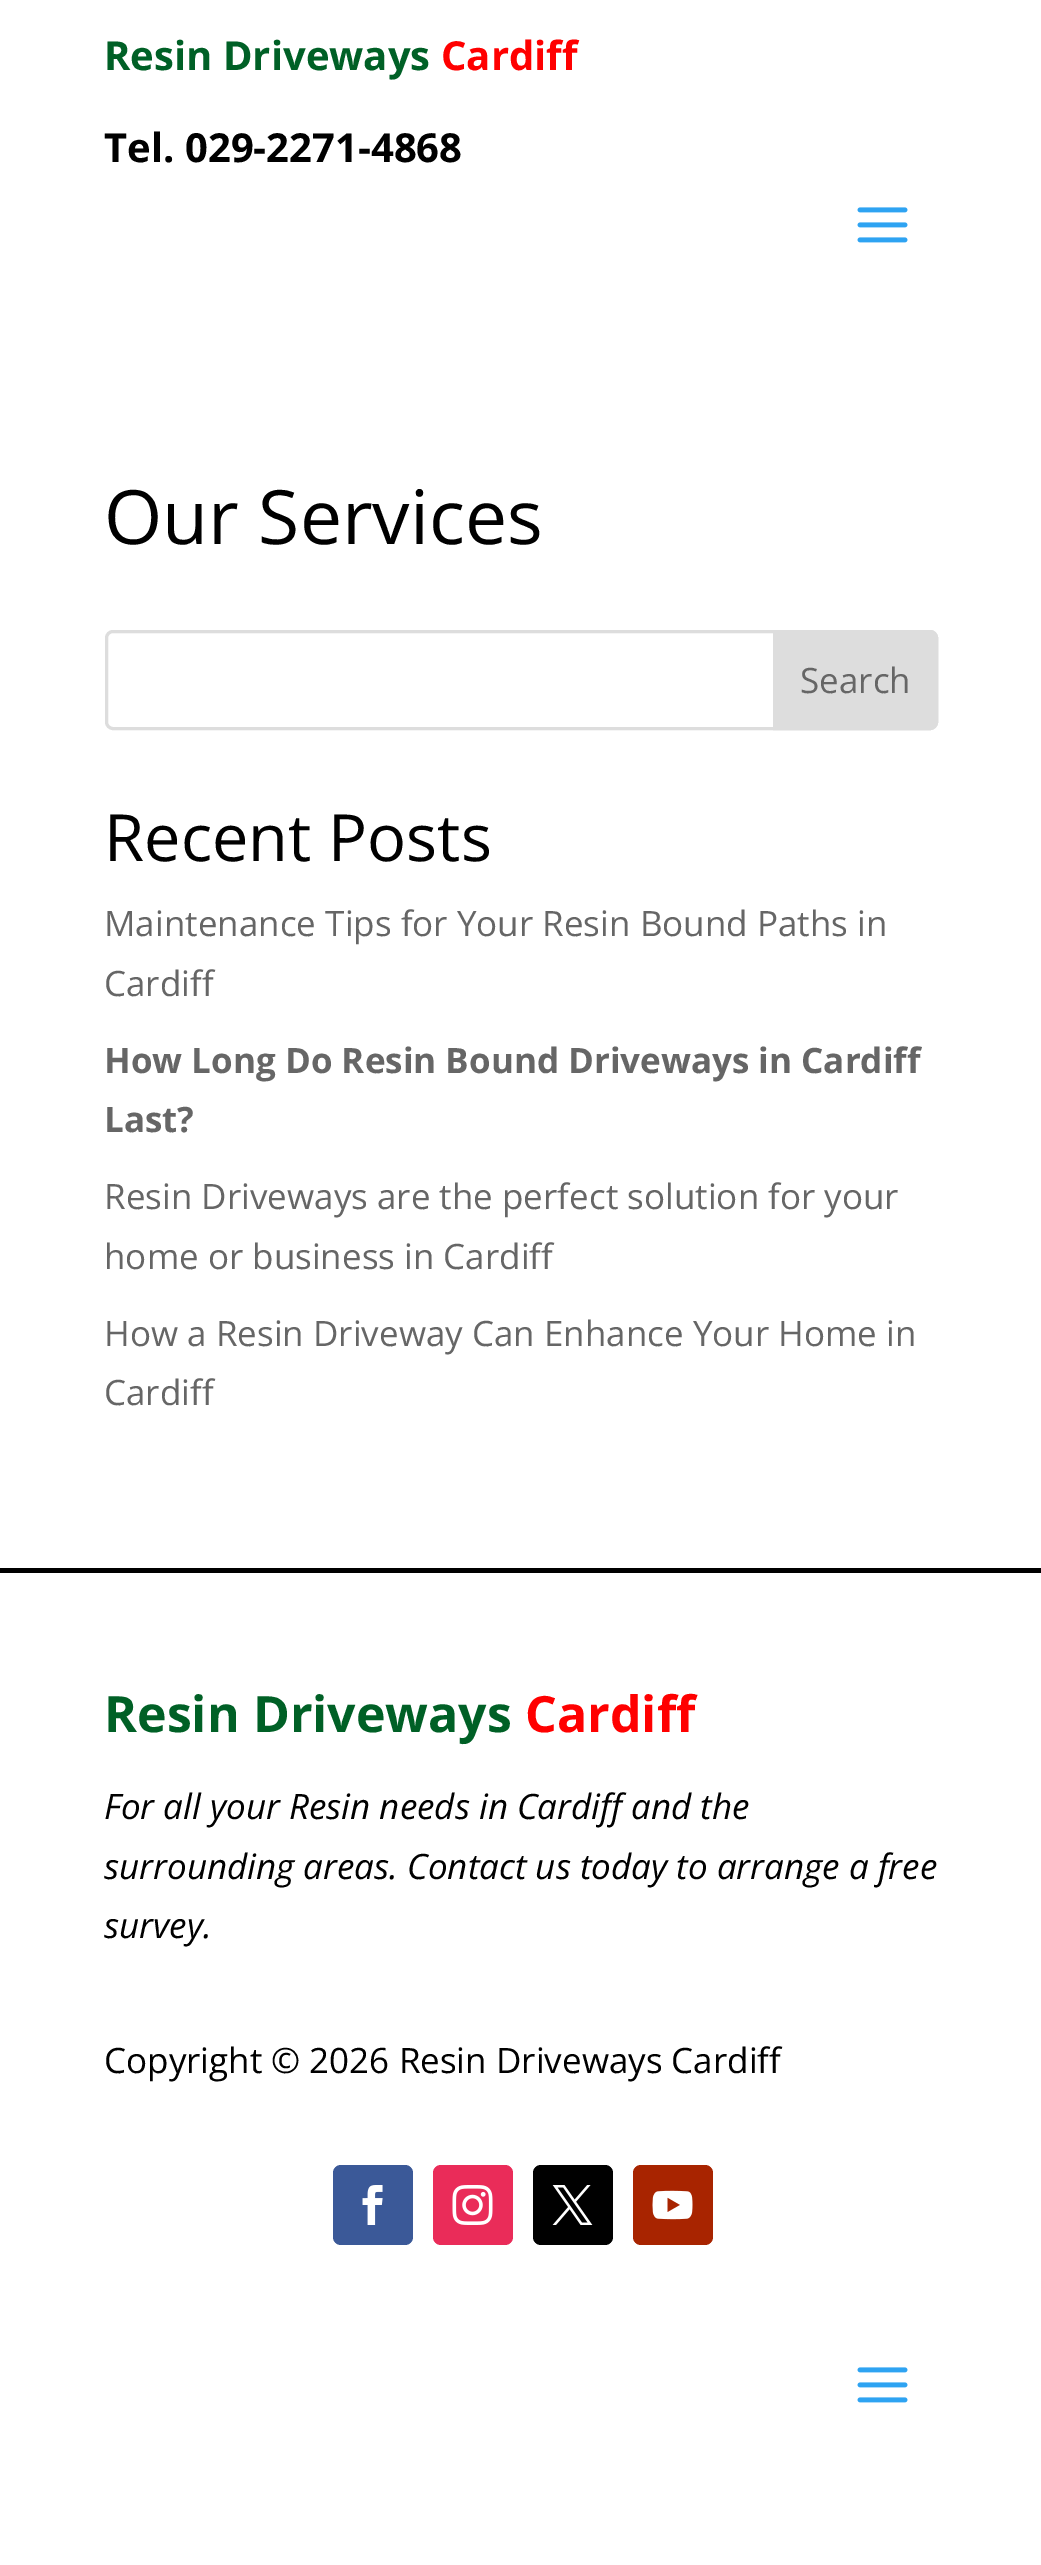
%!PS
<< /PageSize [1041 2565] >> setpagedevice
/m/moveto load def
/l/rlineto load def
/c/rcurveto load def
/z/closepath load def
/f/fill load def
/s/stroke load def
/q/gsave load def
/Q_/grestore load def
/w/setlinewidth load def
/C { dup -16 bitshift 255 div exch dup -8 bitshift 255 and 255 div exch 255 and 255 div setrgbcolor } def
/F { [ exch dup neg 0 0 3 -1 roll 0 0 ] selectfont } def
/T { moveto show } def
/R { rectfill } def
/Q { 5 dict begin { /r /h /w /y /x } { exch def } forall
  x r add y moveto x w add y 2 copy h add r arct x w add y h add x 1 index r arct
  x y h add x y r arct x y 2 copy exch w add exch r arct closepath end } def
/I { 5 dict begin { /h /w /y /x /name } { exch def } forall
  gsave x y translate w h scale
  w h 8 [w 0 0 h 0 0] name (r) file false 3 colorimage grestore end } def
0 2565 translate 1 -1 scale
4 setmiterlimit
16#FFFFFF C
0 0 1041 2565 R
/OpenSans-Bold 40 F
16#006026 C
(Resin Driveways) 104 70 T
16#FF0000 C
(Cardiff) 441 70 T
16#000000 C
(Tel. 029-2271-4868) 104 162 T
(1.rgb) 857 207 51 36 I
/OpenSans-Regular 75 F
(Our Services) 104 544 T
16#DDDDDD C
3 w
106.5 631.5 830 97 6.5 Q s
774.5 631.5 m 155.5 0 l 3.5 0 6.5 3 6.5 6.5 c 0 84 l 0 3.5 -3 6.5 -6.5 6.5 c -155.5 0 l z q f Q_
s
/OpenSans-Regular 35 F
16#666666 C
(Search) 800 693 T
/OpenSans-Regular 65 F
16#000000 C
(Recent Posts) 104 861 T
/OpenSans-Regular 35 F
16#666666 C
(Maintenance Tips for Your Resin Bound Paths in) 104 936 T
(Cardiff) 104 996 T
/OpenSans-Bold 35 F
(How Long Do Resin Bound Driveways in Cardiff) 104 1073 T
(Last?) 104 1132 T
/OpenSans-Regular 35 F
(Resin Driveways are the perfect solution for your) 104 1209 T
(home or business in Cardiff) 104 1269 T
(How a Resin Driveway Can Enhance Your Home in) 104 1346 T
(Cardiff) 104 1405 T
16#000000 C
0 1568 1041 5 R
/OpenSans-Bold 50 F
16#006026 C
(Resin Driveways) 104 1732 T
16#FF0000 C
(Cardiff) 525 1732 T
/OpenSans-Italic 35 F
16#000000 C
(For all your Resin needs in Cardiff and the) 104 1819 T
(surrounding areas. Contact us today to arrange a free) 104 1879 T
(survey.) 104 1938 T
/OpenSans-Regular 35 F
(Copyright © 2026 Resin Driveways Cardiff) 104 2073 T
16#3B5998 C
333 2165 80 80 8 Q f
(2.rgb) 362 2185 21 40 I
16#EA2C59 C
433 2165 80 80 8 Q f
(3.rgb) 452 2185 41 40 I
16#000000 C
533 2165 80 80 8 Q f
(4.rgb) 552 2185 41 40 I
16#A82400 C
633 2165 80 80 8 Q f
(5.rgb) 652 2190 41 30 I
(1.rgb) 857 2367 51 36 I
showpage
